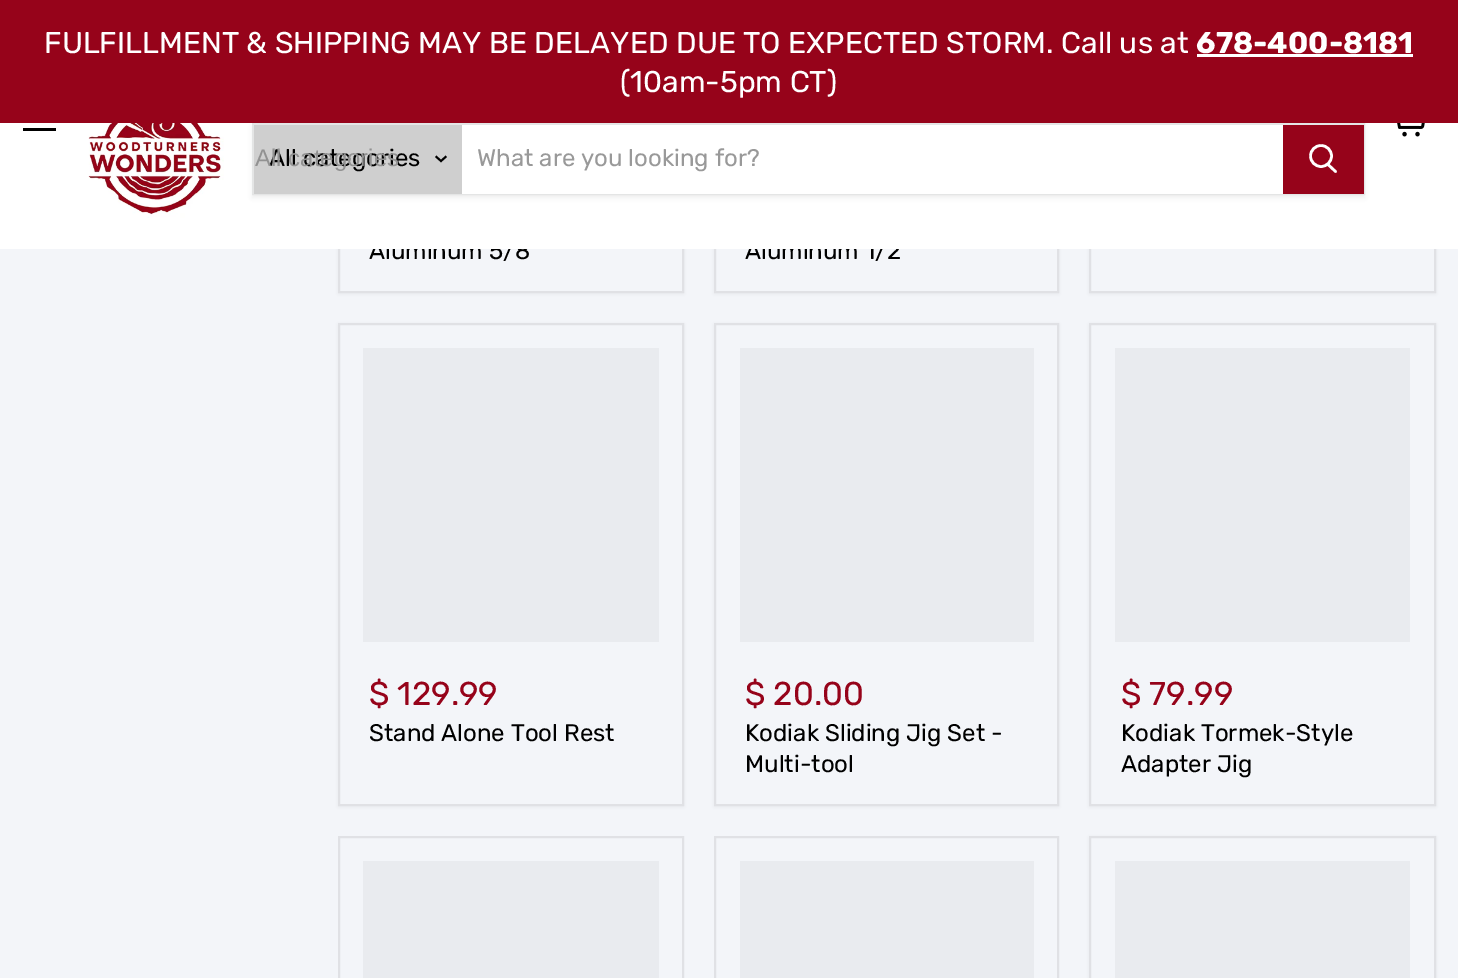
%!PS
<< /PageSize [1458 978] /PageUsesTransparency true >> setpagedevice
/m/moveto load def
/l/rlineto load def
/z/closepath load def
/f/fill load def
/s/stroke load def
/q/gsave load def
/Q_/grestore load def
/w/setlinewidth load def
/C { dup -16 bitshift 255 div exch dup -8 bitshift 255 and 255 div exch 255 and 255 div setrgbcolor } def
/F { [ exch dup neg 0 0 3 -1 roll 0 0 ] selectfont } def
/T { moveto show } def
/R { rectfill } def
/A { dup .setfillconstantalpha .setstrokeconstantalpha } def
/O { newpath 0 360 arc closepath } def
/Q { 5 dict begin { /r /h /w /y /x } { exch def } forall
  x r add y moveto x w add y 2 copy h add r arct x w add y h add x 1 index r arct
  x y h add x y r arct x y 2 copy exch w add exch r arct closepath end } def
/S { 12 dict begin { /a /b /q /h /w /y /x } { exch def } forall gsave /was 0 def
  9 -2 -9 { dup b mul 4 div /e exch def 1 sub .425 mul 2.718 exch exp 1 add a .99 .min exch div /now exch def
    1 1 now sub 1 was sub div sub A /was now def
    w h .min e 2 mul add 0 gt { x e sub y e sub w e 2 mul add h e 2 mul add
      q e add b .6 mul add w h .min 2 div e add .min 0 .max Q fill } if } for grestore end } def
/I { 5 dict begin { /h /w /y /x /name } { exch def } forall
  gsave x y translate w h scale
  w h 8 [w 0 0 h 0 0] name (r) file false 3 colorimage grestore end } def
0 .pushpdf14devicefilter
0 978 translate 1 -1 scale
4 setmiterlimit
16#F3F5F9 C
0 0 1458 978 R
16#7A7B7D C
338 -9 346 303 0 3 .11 S
16#F3F5F9 C
340 249 342 42 R
16#E0E1E5 C
2 w
339 -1 344 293 rectstroke
/Rubik-Regular 24 F
16#000000 C
(Aluminum 5/8) 369 259 T
16#7A7B7D C
714 -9 345 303 0 3 .11 S
16#F3F5F9 C
716 249 341 42 R
16#E0E1E5 C
715 -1 343 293 rectstroke
16#000000 C
(Aluminum 1/2) 745 259 T
16#7A7B7D C
1089 -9 347 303 0 3 .11 S
16#F3F5F9 C
1091 249 343 42 R
16#E0E1E5 C
1090 -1 345 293 rectstroke
16#FFFFFF C
0 123 1458 126 R
16#7A7B7D C
252 126 1113 72 0 2 .11 S
16#96031A C
0 0 1458 123 R
/Rubik-Regular 30 F
16#FFFFFF C
(FULFILLMENT & SHIPPING MAY BE DELAYED DUE TO EXPECTED STORM. Call us at) 44 53 T
/Rubik-Bold 30 F
(678-400-8181) 1196 53 T
1197 54 216 3 R
/Rubik-Regular 30 F
(\(10am-5pm CT\)) 620 92 T
16#000000 C
23 128 33 3 R
(1.rgb) 1397 123 28 14 I
(2.rgb) 88 123 136 95 I
16#E4E5E5 C
253 124 1111 70 rectstroke
16#CFCFCF C
254 125 208 69 R
/Rubik-Regular 24 F
16#000000 C
(All categories) 269 166 T
/LiberationSans-Regular 24 F
16#929292 C
(All categories) 255 166 T
16#000000 C
1.9 w
2 setlinecap
441 161 m 4.5 -4 l 441 161 m -4.5 -4 l s
16#FFFFFF C
462 125 821 69 R
/Rubik-Regular 24 F
16#999999 C
(What are you looking for?) 477 166 T
16#96031A C
1283 125 81 69 R
16#FFFFFF C
2.6 w
1 setlinecap
1335.5 171.5 m -7.5 -7 l s
0 setlinecap
1321 156 10.5 O s
16#7A7B7D C
338 324 346 483 0 3 .11 S
16#F3F5F9 C
339 324 m 344 0 l 0 481 l -344 0 l z q f Q_
16#E0E1E5 C
2 w
s
16#E9EBEF C
363 348 296 294 R
/Rubik-Regular 33 F
16#96031A C
($ 129.99) 369 705 T
/Rubik-Regular 24 F
16#000000 C
(Stand Alone Tool Rest) 369 741 T
16#7A7B7D C
714 324 345 483 0 3 .11 S
16#F3F5F9 C
715 324 m 343 0 l 0 481 l -343 0 l z q f Q_
16#E0E1E5 C
s
16#E9EBEF C
740 348 294 294 R
/Rubik-Regular 33 F
16#96031A C
($ 20.00) 745 705 T
/Rubik-Regular 24 F
16#000000 C
(Kodiak Sliding Jig Set -) 745 741 T
(Multi-tool) 745 772 T
16#7A7B7D C
1089 324 347 483 0 3 .11 S
16#F3F5F9 C
1090 324 m 345 0 l 0 481 l -345 0 l z q f Q_
16#E0E1E5 C
s
16#E9EBEF C
1115 348 295 294 R
/Rubik-Regular 33 F
16#96031A C
($ 79.99) 1121 705 T
/Rubik-Regular 24 F
16#000000 C
(Kodiak Tormek-Style) 1121 741 T
(Adapter Jig) 1121 772 T
16#E0E1E5 C
339 837 344 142 rectstroke
16#E9EBEF C
363 861 296 117 R
16#E0E1E5 C
715 837 343 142 rectstroke
16#E9EBEF C
740 861 294 117 R
16#7A7B7D C
1089 837 347 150 0 3 .11 S
16#F3F5F9 C
1090 837 m 345 0 l 0 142 l -345 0 l z q f Q_
16#E0E1E5 C
s
16#E9EBEF C
1115 861 295 117 R
.poppdf14devicefilter showpage
